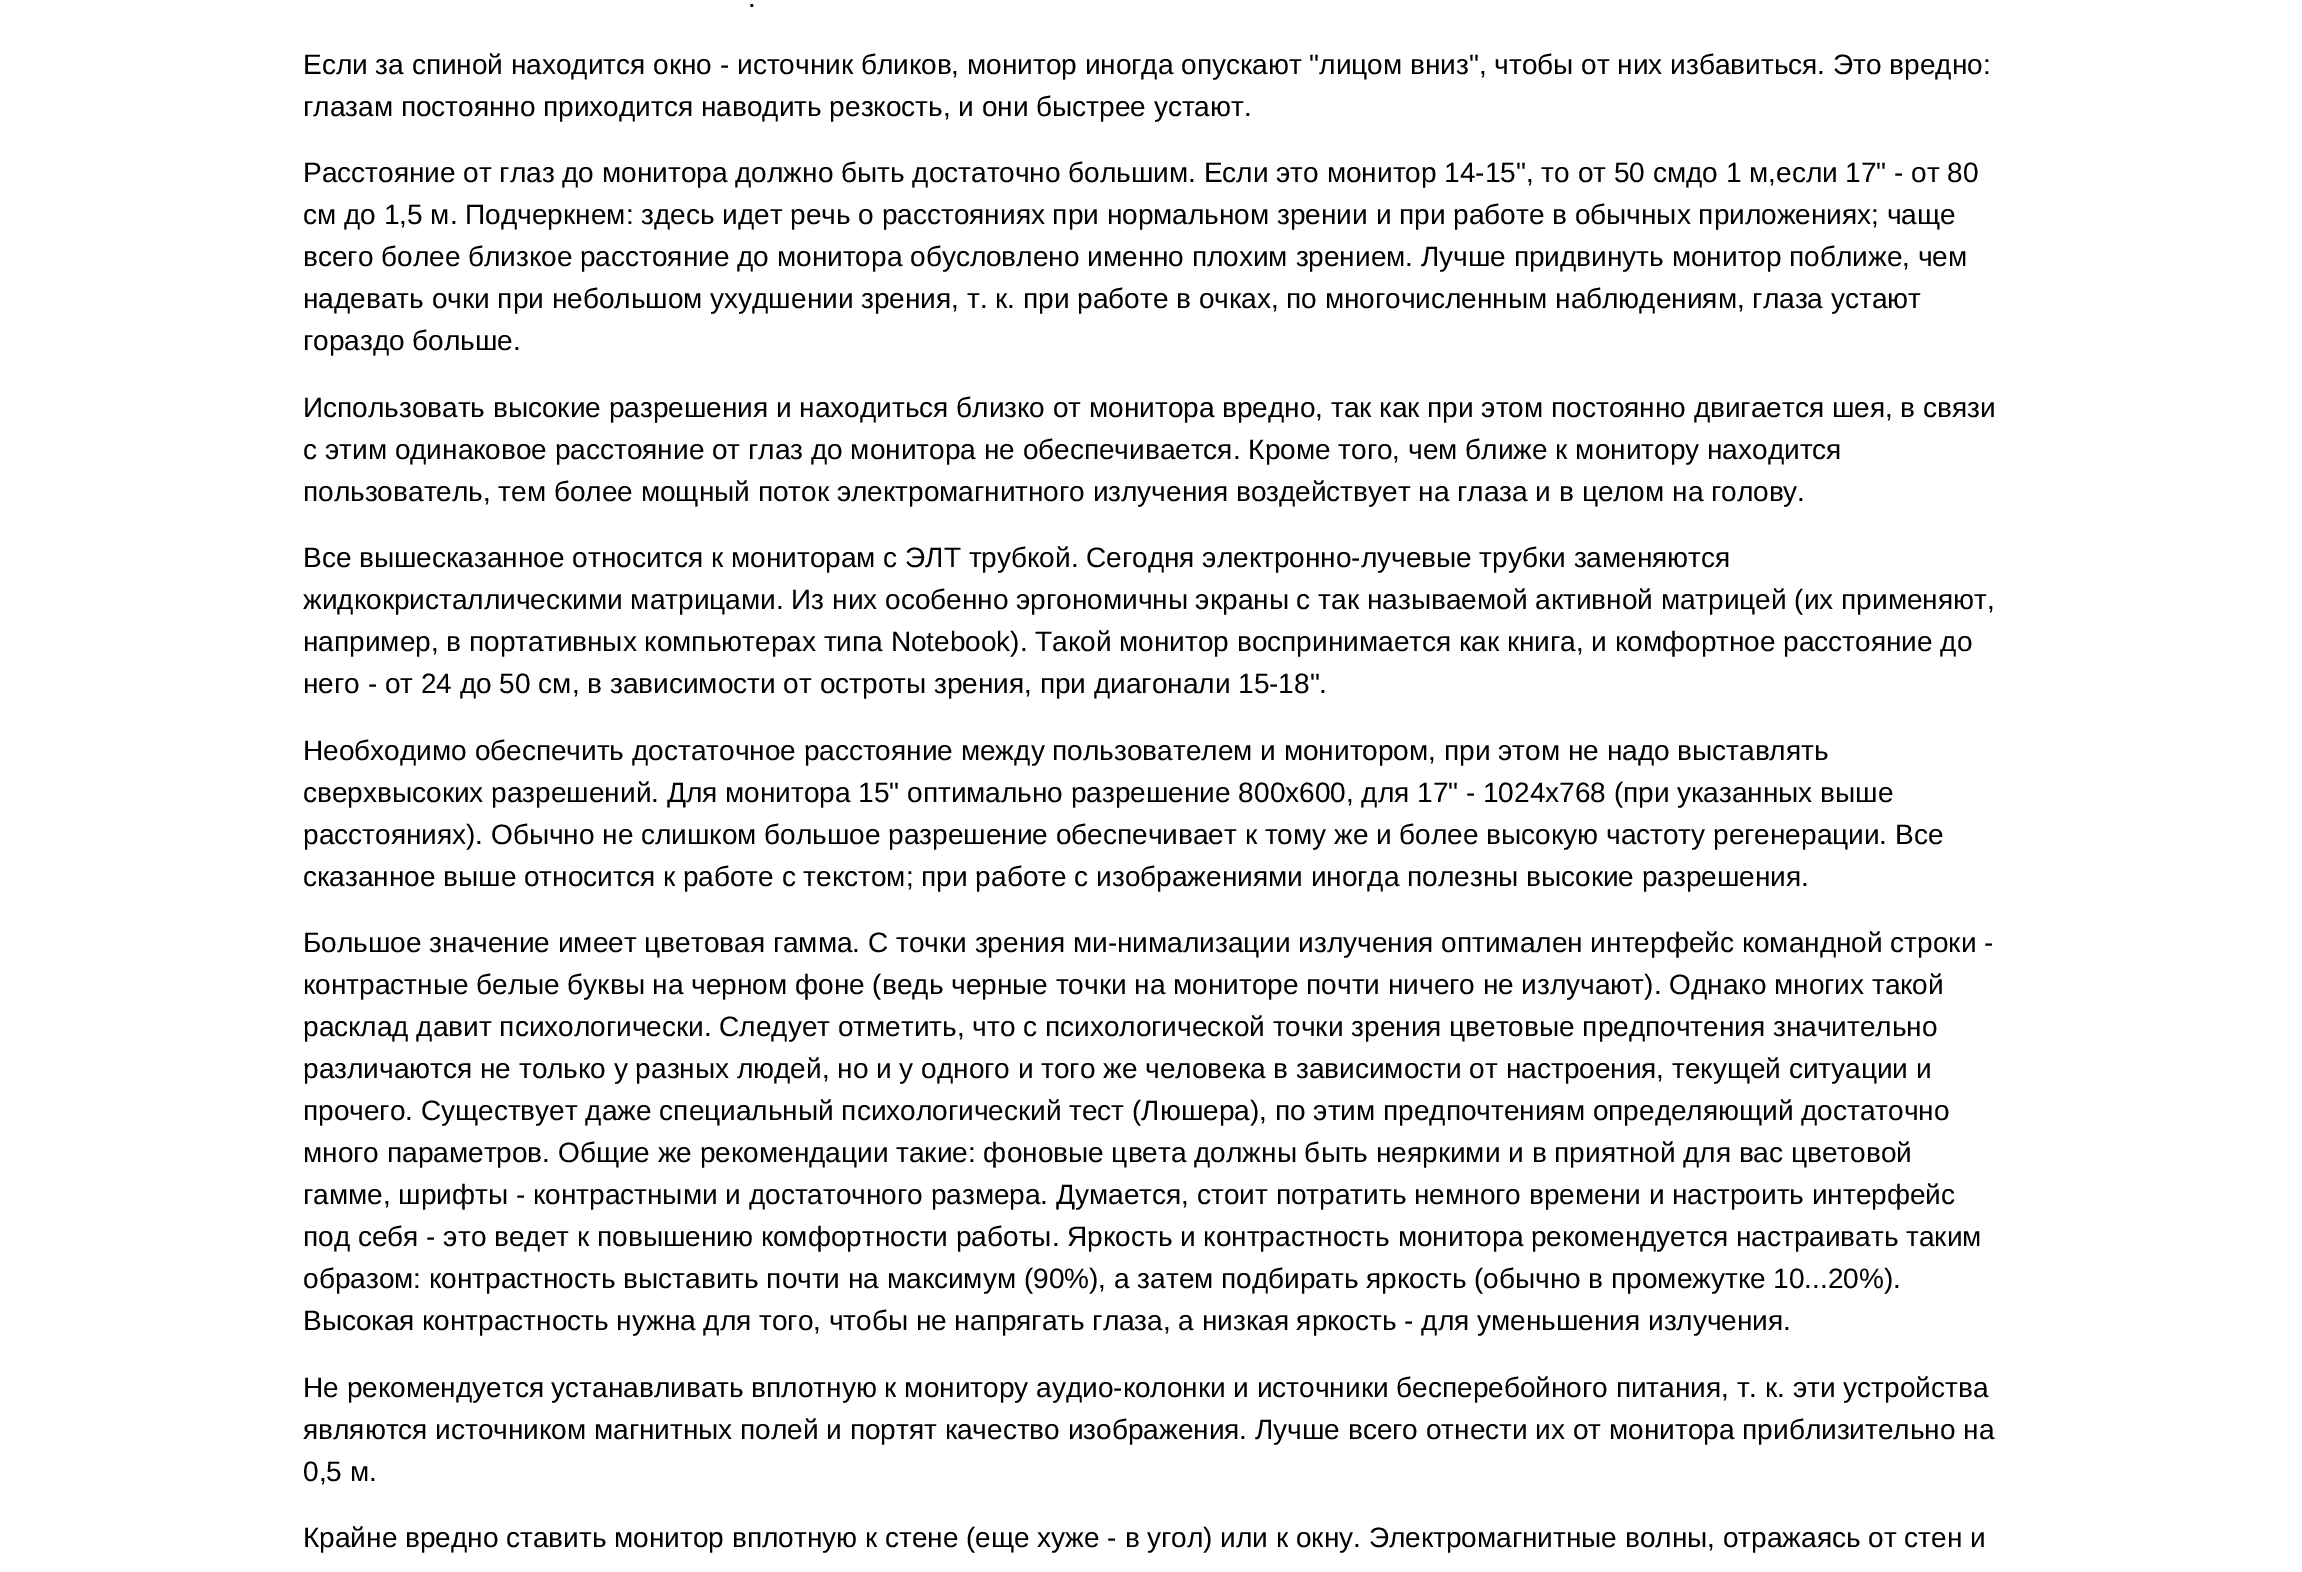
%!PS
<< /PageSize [2302 1572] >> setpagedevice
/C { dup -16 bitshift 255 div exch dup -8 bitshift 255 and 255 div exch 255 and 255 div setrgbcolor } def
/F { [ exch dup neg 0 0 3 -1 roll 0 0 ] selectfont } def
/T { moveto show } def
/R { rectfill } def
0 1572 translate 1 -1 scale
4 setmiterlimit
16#FFFFFF C
0 0 2302 1572 R
/LiberationSans-Regular 28 F
16#000000 C
(.) 748 7 T
(Если за спиной находится окно - источник бликов, монитор иногда опускают "лицом вниз", чтобы от них избавиться. Это вредно:) 303 74 T
(глазам постоянно приходится наводить резкость, и они быстрее устают.) 303 116 T
(Расстояние от глаз до монитора должно быть достаточно большим. Если это монитор 14-15", то от 50 смдо 1 м,если 17" - от 80) 303 182 T
(см до 1,5 м. Подчеркнем: здесь идет речь о расстояниях при нормальном зрении и при работе в обычных приложениях; чаще) 303 224 T
(всего более близкое расстояние до монитора обусловлено именно плохим зрением. Лучше придвинуть монитор поближе, чем) 303 266 T
(надевать очки при небольшом ухудшении зрения, т. к. при работе в очках, по многочисленным наблюдениям, глаза устают) 303 308 T
(гораздо больше.) 303 350 T
(Использовать высокие разрешения и находиться близко от монитора вредно, так как при этом постоянно двигается шея, в связи) 303 417 T
(с этим одинаковое расстояние от глаз до монитора не обеспечивается. Кроме того, чем ближе к монитору находится) 303 459 T
(пользователь, тем более мощный поток электромагнитного излучения воздействует на глаза и в целом на голову.) 303 501 T
(Все вышесказанное относится к мониторам с ЭЛТ трубкой. Сегодня электронно-лучевые трубки заменяются) 303 567 T
(жидкокристаллическими матрицами. Из них особенно эргономичны экраны с так называемой активной матрицей \(их применяют,) 303 609 T
(например, в портативных компьютерах типа Notebook\). Такой монитор воспринимается как книга, и комфортное расстояние до) 303 651 T
(него - от 24 до 50 см, в зависимости от остроты зрения, при диагонали 15-18".) 303 693 T
(Необходимо обеспечить достаточное расстояние между пользователем и монитором, при этом не надо выставлять) 303 760 T
(сверхвысоких разрешений. Для монитора 15" оптимально разрешение 800x600, для 17" - 1024x768 \(при указанных выше) 303 802 T
(расстояниях\). Обычно не слишком большое разрешение обеспечивает к тому же и более высокую частоту регенерации. Все) 303 844 T
(сказанное выше относится к работе с текстом; при работе с изображениями иногда полезны высокие разрешения.) 303 886 T
(Большое значение имеет цветовая гамма. С точки зрения ми-нимализации излучения оптимален интерфейс командной строки -) 303 952 T
(контрастные белые буквы на черном фоне \(ведь черные точки на мониторе почти ничего не излучают\). Однако многих такой) 303 994 T
(расклад давит психологически. Следует отметить, что с психологической точки зрения цветовые предпочтения значительно) 303 1036 T
(различаются не только у разных людей, но и у одного и того же человека в зависимости от настроения, текущей ситуации и) 303 1078 T
(прочего. Существует даже специальный психологический тест \(Люшера\), по этим предпочтениям определяющий достаточно) 303 1120 T
(много параметров. Общие же рекомендации такие: фоновые цвета должны быть неяркими и в приятной для вас цветовой) 303 1162 T
(гамме, шрифты - контрастными и достаточного размера. Думается, стоит потратить немного времени и настроить интерфейс) 303 1204 T
(под себя - это ведет к повышению комфортности работы. Яркость и контрастность монитора рекомендуется настраивать таким) 303 1246 T
(образом: контрастность выставить почти на максимум \(90%\), а затем подбирать яркость \(обычно в промежутке 10...20%\).) 303 1288 T
(Высокая контрастность нужна для того, чтобы не напрягать глаза, а низкая яркость - для уменьшения излучения.) 303 1330 T
(Не рекомендуется устанавливать вплотную к монитору аудио-колонки и источники бесперебойного питания, т. к. эти устройства) 303 1397 T
(являются источником магнитных полей и портят качество изображения. Лучше всего отнести их от монитора приблизительно на) 303 1439 T
(0,5 м.) 303 1481 T
(Крайне вредно ставить монитор вплотную к стене \(еще хуже - в угол\) или к окну. Электромагнитные волны, отражаясь от стен и) 303 1547 T
showpage
